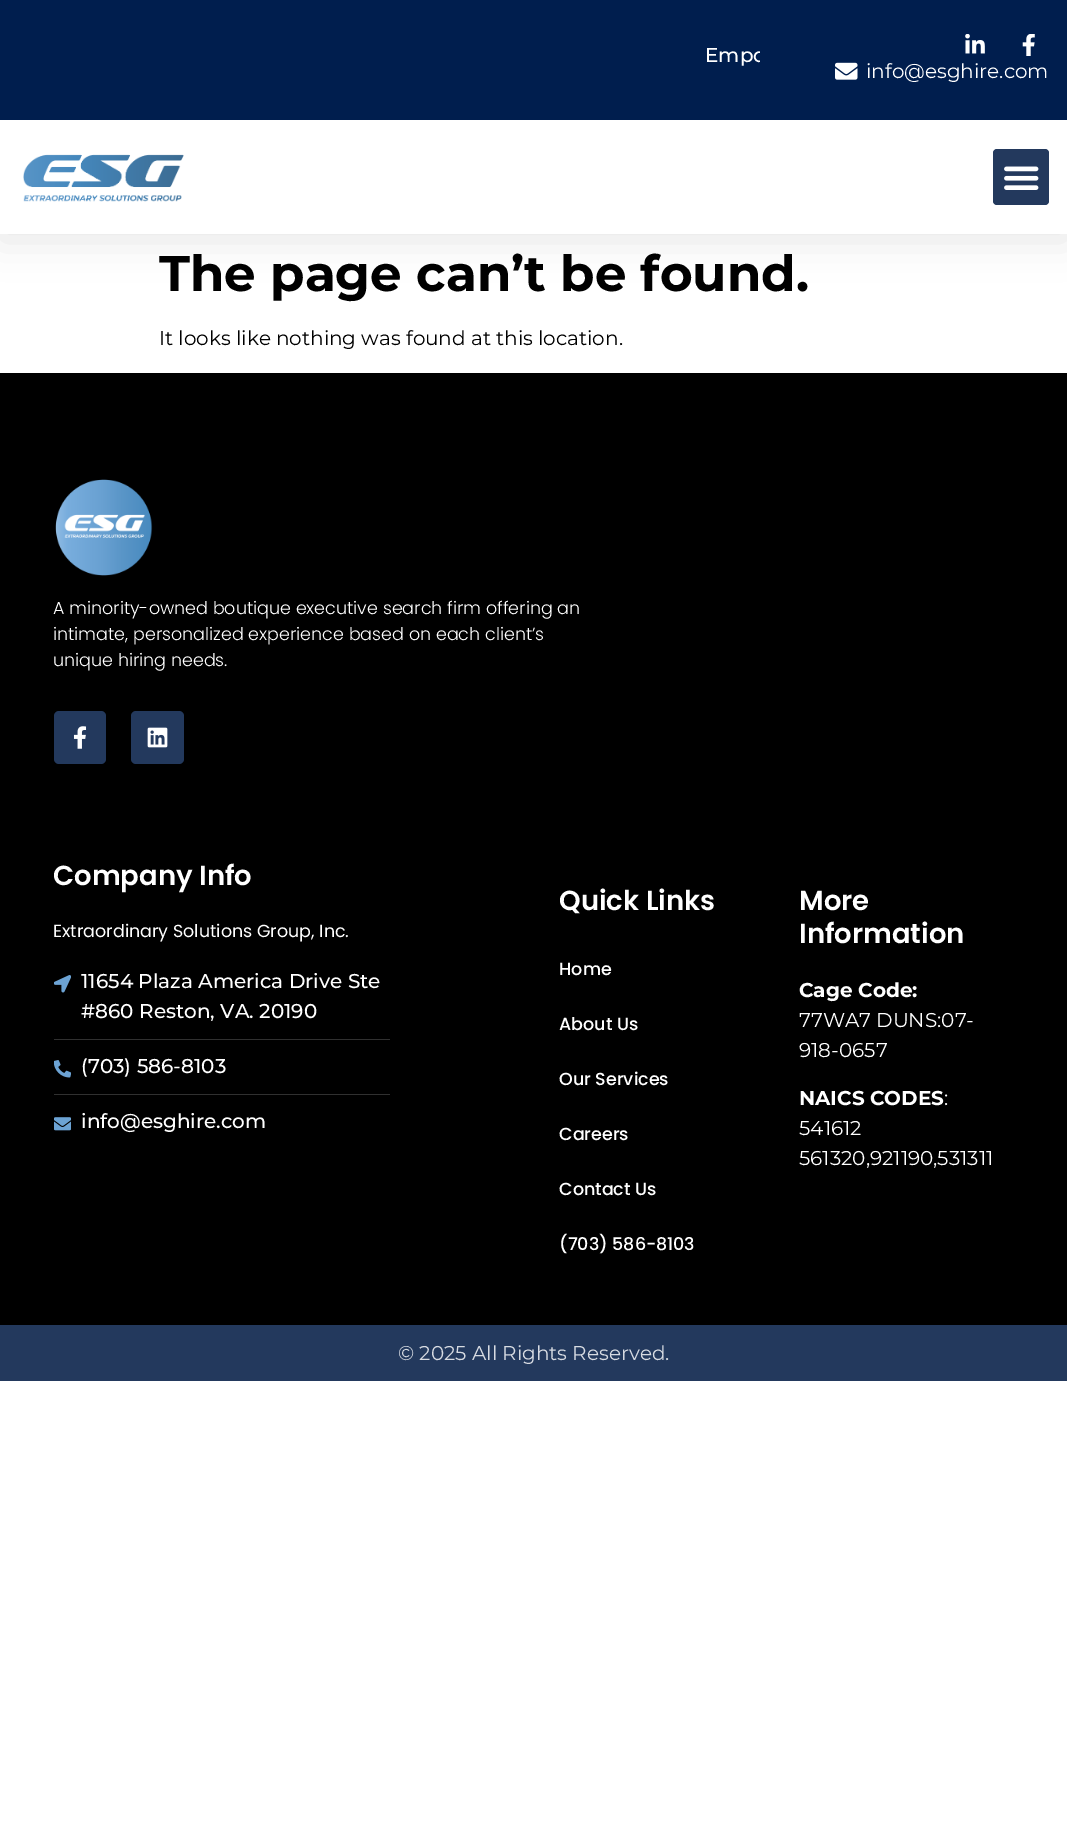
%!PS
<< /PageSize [1067 1825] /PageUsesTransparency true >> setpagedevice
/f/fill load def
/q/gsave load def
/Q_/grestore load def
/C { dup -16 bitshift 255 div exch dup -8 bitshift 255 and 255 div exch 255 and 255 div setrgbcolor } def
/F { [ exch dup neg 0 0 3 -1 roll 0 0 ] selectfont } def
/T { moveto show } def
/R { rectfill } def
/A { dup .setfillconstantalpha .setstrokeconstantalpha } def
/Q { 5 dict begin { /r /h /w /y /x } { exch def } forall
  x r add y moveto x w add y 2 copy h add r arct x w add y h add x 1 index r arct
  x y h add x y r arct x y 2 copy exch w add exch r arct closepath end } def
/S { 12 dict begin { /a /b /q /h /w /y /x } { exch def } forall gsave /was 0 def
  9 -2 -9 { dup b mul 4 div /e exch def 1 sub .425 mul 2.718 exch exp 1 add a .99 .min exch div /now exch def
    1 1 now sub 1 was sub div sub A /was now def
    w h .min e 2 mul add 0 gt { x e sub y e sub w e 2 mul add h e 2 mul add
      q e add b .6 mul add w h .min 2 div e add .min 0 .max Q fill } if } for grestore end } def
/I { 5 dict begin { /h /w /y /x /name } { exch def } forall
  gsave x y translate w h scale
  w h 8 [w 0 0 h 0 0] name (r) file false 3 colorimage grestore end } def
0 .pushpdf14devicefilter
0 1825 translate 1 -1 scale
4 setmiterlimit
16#FFFFFF C
0 0 1067 1825 R
16#000000 C
0 6 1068 234 0 19 .1 S
16#001E4E C
0 0 1067 120 R
q
19 41 741 30 rectclip
/Montserrat-Medium 20 F
16#FFFFFF C
(Empo) 705 62 T
Q_
(1.rgb) 965 34 20 20 I
(2.rgb) 1022 34 13 22 I
(3.rgb) 835 62 23 18 I
/Montserrat-Regular 20 F
16#FFFFFF C
(info@esghire.com) 866 78 T
0 120 1067 114 R
(4.rgb) 23 154 161 48 I
16#23395D C
993 149 56 56 4 Q f
(5.rgb) 1004 166 35 24 I
/Montserrat-Bold 50 F
16#000000 C
(The page can’t be found.) 159 291 T
/Montserrat-Regular 20 F
(It looks like nothing was found at this location.) 159 345 T
0 373 1067 952 R
(6.rgb) 55 479 98 97 I
/Poppins-Light 17.5 F
16#FFFFFF C
(A minority-owned boutique executive search firm offering an) 53 614 T
(intimate, personalized experience based on each client’s) 53 640 T
(unique hiring needs.) 53 666 T
16#23395D C
54 711 52 53 5 Q f
(7.rgb) 73 726 14 23 I
131 711 53 53 5 Q f
(8.rgb) 147 727 21 21 I
/Poppins-SemiBold 27.5 F
16#FFFFFF C
(Company Info) 53 885 T
/Poppins-Regular 17.5 F
(Extraordinary Solutions Group, Inc.) 53 937 T
(9.rgb) 54 975 17 18 I
/Montserrat-Medium 20 F
(11654 Plaza America Drive Ste) 81 988 T
(#860 Reston, VA. 20190) 81 1018 T
16#303030 C
54 1039 336 1 R
(10.rgb) 54 1060 17 18 I
16#FFFFFF C
(\(703\) 586-8103) 81 1073 T
16#303030 C
54 1094 336 1 R
(11.rgb) 54 1117 17 14 I
16#FFFFFF C
(info@esghire.com) 81 1128 T
/Poppins-SemiBold 27.5 F
(Quick Links) 559 910 T
/Poppins-Medium 17.5 F
(Home) 559 975 T
(About Us) 559 1030 T
(Our Services) 559 1085 T
(Careers) 559 1140 T
(Contact Us) 559 1195 T
(\(703\) 586-8103) 559 1250 T
/Poppins-SemiBold 27.5 F
(More) 799 910 T
(Information) 799 943 T
/Montserrat-Bold 20 F
(Cage Code:) 799 997 T
/Montserrat-Regular 20 F
(77WA7 DUNS:07-) 799 1027 T
(918-0657) 799 1057 T
/Montserrat-Bold 20 F
(NAICS CODES) 799 1105 T
/Montserrat-Regular 20 F
(:) 944 1105 T
(541612) 799 1135 T
(561320,921190,531311) 799 1165 T
16#23395D C
0 1325 1067 56 R
16#D7DBE2 C
(© 2025 All Rights Reserved.) 398 1360 T
.poppdf14devicefilter showpage
